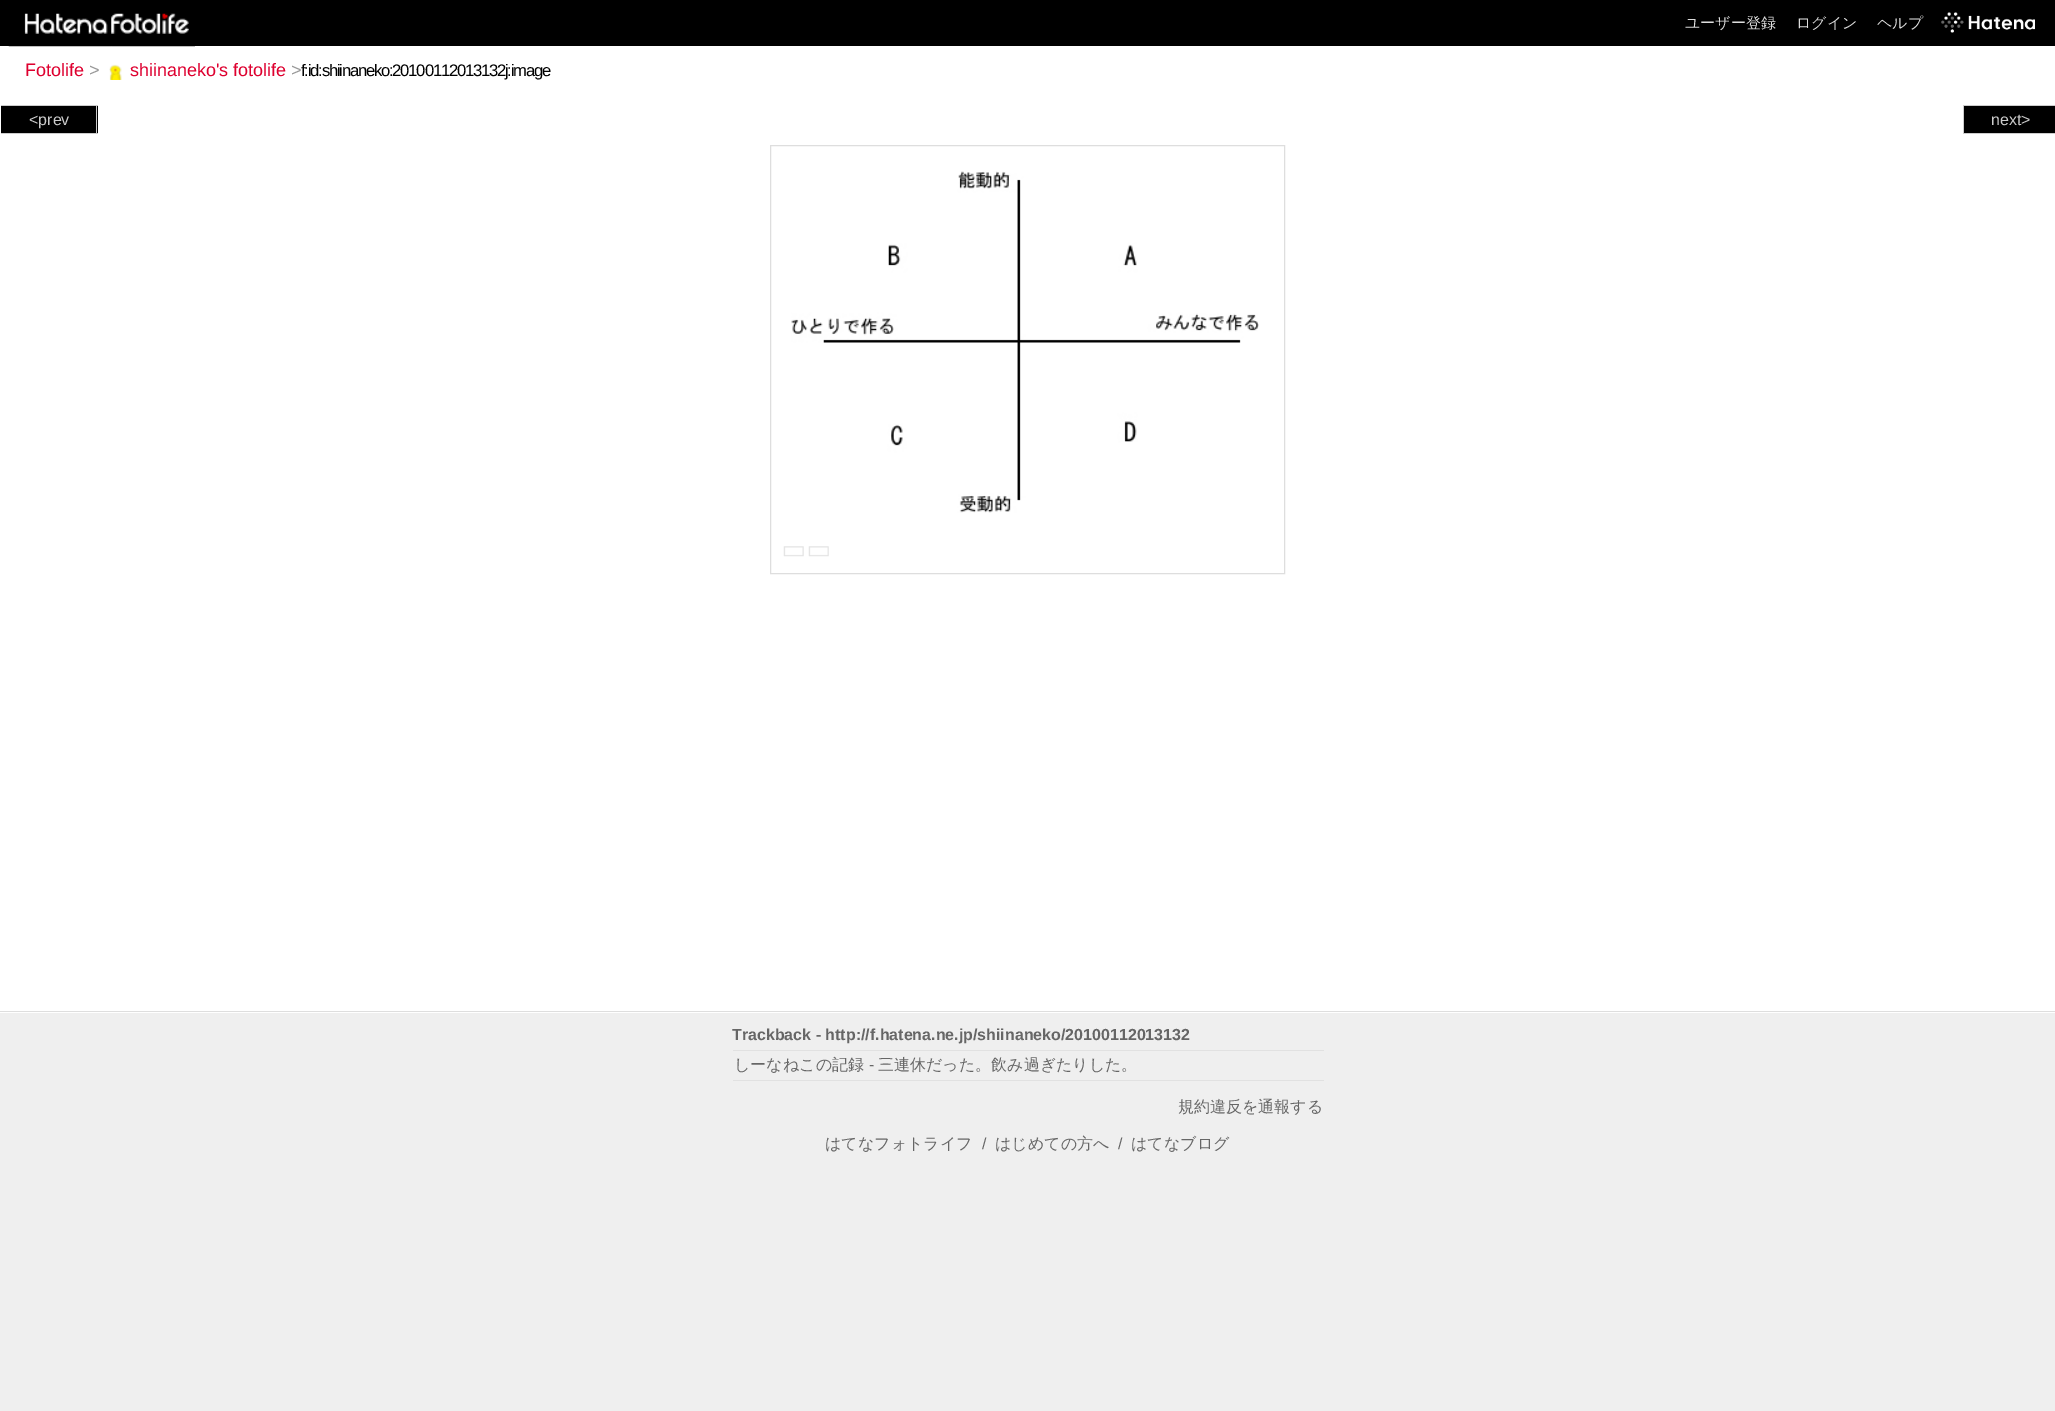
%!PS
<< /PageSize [2055 1411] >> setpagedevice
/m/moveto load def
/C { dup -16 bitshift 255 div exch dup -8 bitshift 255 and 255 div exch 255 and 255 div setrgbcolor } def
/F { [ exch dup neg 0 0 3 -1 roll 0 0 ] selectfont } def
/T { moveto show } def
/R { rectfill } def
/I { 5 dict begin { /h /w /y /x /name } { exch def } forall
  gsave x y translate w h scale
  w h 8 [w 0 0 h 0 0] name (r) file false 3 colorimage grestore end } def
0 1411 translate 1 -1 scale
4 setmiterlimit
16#EFEFEF C
0 0 2055 1411 R
16#000000 C
0 0 2055 46 R
16#FFFFFF C
0 46 2055 967 R
(1.rgb) 8 13 104 34 I
(2.rgb) 111 13 84 34 I
/WenQuanYiZenHei-Medium 15 F
16#DDDDDD C
(ユーザー登録) 1685 28 T
(ログイン) 1796 28 T
(ヘルプ) 1877 28 T
(3.rgb) 1941 12 94 21 I
/LiberationSans-Regular 18 F
16#DE002F C
(Fotolife) 25 76 T
16#999999 C
(>) 89 76 T
(4.rgb) 109 64 13 16 I
16#DE002F C
(shiinaneko's fotolife) 130 76 T
16#999999 C
(>) 291 76 T
/LiberationSans-Regular 16.7 F
16#000000 C
301 76 m -1.25 0 (f:id:shiinaneko:20100112013132j:image) ashow
16#DEDEDE C
0 1011 2055 1 R
16#000000 C
1 106 97 27 R
16#CCCCCC C
1 105 97 1 R
96 105 1 29 R
1 133 97 1 R
/LiberationSans-Regular 16 F
(<prev) 29 125 T
16#000000 C
1964 106 91 27 R
16#CCCCCC C
1963 105 92 1 R
1963 133 92 1 R
1963 105 1 29 R
(next>) 1991 125 T
16#DEDEDE C
770.5 145.5 514 428 rectstroke
(5.rgb) 791 171 468 342 I
(6.rgb) 783 546 21 11 I
(7.rgb) 808 546 21 11 I
/LiberationSans-Bold 16 F
16#666666 C
(Trackback - http://f.hatena.ne.jp/shiinaneko/20100112013132) 732 1040 T
16#E1E1E1 C
733 1050 591 1 R
733 1080 591 1 R
/WenQuanYiZenHei-Medium 16 F
16#666666 C
(しーなねこの記録) 734 1070 T
/LiberationSans-Regular 16 F
(-) 869 1070 T
/WenQuanYiZenHei-Medium 16 F
(三連休だった。飲み過ぎたりした。) 878 1070 T
(規約違反を通報する) 1178 1112 T
(はてなフォトライフ) 825 1149 T
/LiberationSans-Regular 16 F
(/) 982 1149 T
/WenQuanYiZenHei-Medium 16 F
(はじめての方へ) 995 1149 T
/LiberationSans-Regular 16 F
(/) 1118 1149 T
/WenQuanYiZenHei-Medium 16 F
(はてなブログ) 1131 1149 T
showpage
